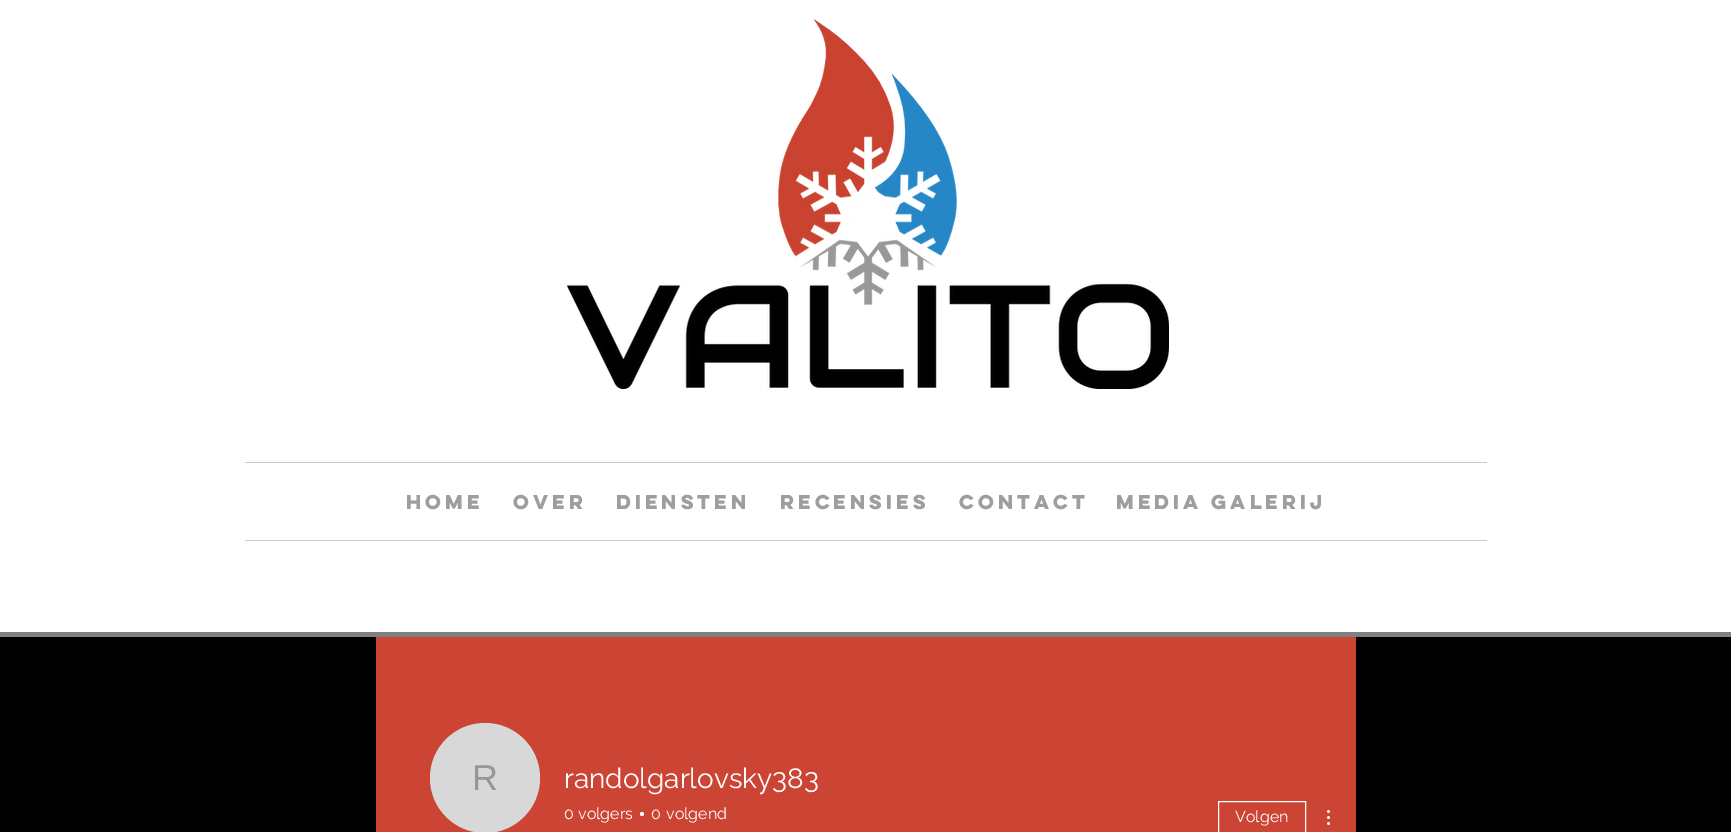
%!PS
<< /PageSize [1731 832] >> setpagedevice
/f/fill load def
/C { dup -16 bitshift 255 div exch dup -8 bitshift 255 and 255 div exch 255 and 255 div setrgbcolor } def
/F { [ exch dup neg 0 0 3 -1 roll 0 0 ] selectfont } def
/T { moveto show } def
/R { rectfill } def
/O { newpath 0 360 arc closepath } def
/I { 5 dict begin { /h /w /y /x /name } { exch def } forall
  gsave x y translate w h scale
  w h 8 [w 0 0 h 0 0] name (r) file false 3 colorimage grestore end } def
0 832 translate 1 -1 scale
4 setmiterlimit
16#000000 C
0 0 1731 832 R
16#FFFFFF C
0 0 1731 632 R
16#808080 C
0 632 1731 5 R
(1.rgb) 567 19 602 370 I
16#CACACA C
245 462 1242 1 R
245 540 1242 1 R
/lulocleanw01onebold-Bold 18 F
16#9E9E9E C
(Home) 406 509 T
(Over) 513 509 T
(Diensten) 616 509 T
(Recensies) 780 509 T
(Contact) 959 509 T
(Media galerij) 1116 509 T
16#CC4433 C
376 637 980 195 R
16#D8D8D8 C
485 778 55 O f
/LiberationSans-Regular 36 F
16#979797 C
(R) 472 790 T
/Raleway-Regular 28 F
16#FFFFFF C
(randolgarlovsky383) 564 788 T
/Raleway-Regular 16 F
(0) 564 819 T
(volgers) 578 819 T
642 814 2 O f
(0) 651 819 T
(volgend) 666 819 T
1218.5 801.5 87 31 rectstroke
(Volgen) 1235 822 T
(2.rgb) 1327 810 3 15 I
showpage
